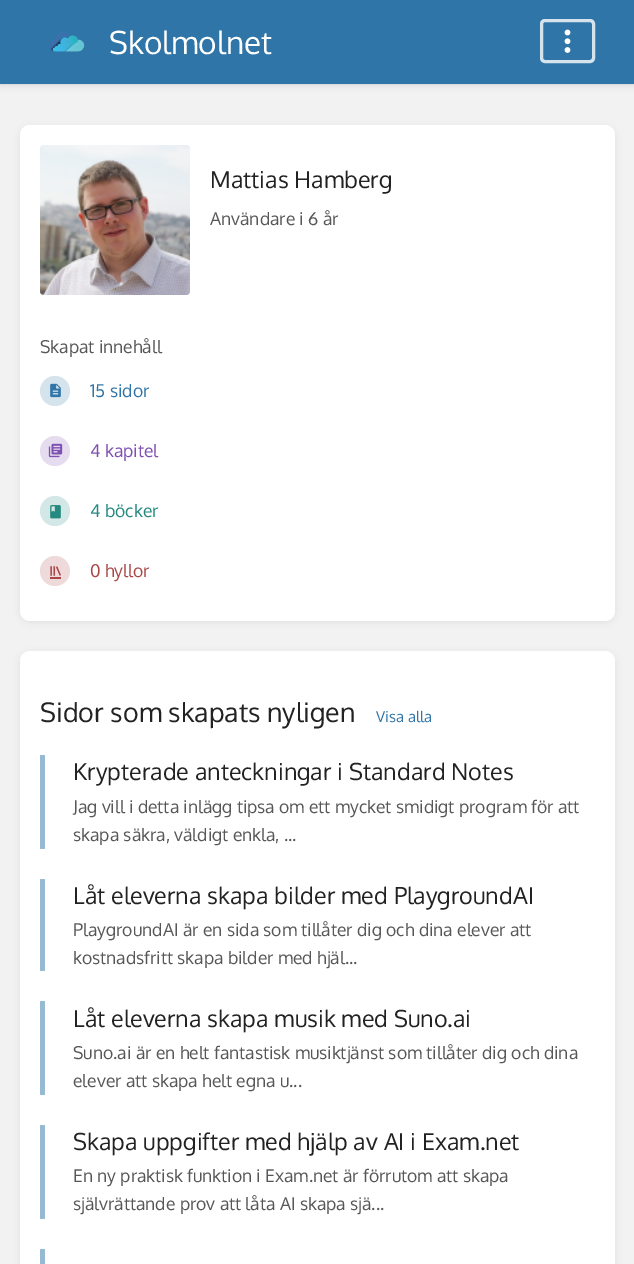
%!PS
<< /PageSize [634 1264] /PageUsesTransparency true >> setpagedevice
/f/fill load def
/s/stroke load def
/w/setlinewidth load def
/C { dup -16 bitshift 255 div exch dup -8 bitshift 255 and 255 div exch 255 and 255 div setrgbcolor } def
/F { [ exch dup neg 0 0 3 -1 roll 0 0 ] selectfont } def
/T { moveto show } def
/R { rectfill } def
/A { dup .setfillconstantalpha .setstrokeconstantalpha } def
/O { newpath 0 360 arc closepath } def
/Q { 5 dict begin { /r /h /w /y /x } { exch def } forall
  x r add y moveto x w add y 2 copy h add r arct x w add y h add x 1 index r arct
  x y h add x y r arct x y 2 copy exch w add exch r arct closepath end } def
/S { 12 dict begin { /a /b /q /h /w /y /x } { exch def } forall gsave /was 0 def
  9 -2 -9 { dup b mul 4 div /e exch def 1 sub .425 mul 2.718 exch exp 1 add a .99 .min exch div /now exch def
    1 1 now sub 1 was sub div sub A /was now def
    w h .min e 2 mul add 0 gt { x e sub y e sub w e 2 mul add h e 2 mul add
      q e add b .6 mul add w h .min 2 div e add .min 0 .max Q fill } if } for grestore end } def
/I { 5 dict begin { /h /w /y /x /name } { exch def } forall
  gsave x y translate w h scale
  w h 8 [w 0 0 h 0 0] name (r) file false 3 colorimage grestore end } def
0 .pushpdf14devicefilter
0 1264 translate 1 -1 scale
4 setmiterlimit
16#F2F2F2 C
0 0 634 1264 R
16#000000 C
1 3 633 82 0 4 .1 S
16#2F75A7 C
0 0 634 84 R
16#DDDDDD C
0 84 634 1 R
(1.rgb) 49 32 36 20 I
/Oxygen-Regular 31.5 F
16#FFFFFF C
(Skolmolnet) 109 54 T
16#D5E3ED C
3 w
541.5 20.5 52 41 3.5 Q s
(2.rgb) 564 29 7 24 I
16#000000 C
21 128 593 493 9 4 .1 S
16#FFFFFF C
20 125 595 496 10 Q f
(3.rgb) 40 145 150 150 I
/Oxygen-Regular 23.3 F
16#222222 C
(Mattias Hamberg) 210 188 T
/Oxygen-Regular 17.5 F
16#575757 C
(Användare i 6 år) 210 225 T
(Skapat innehåll) 40 353 T
(4.rgb) 50 383 11 15 I
0.2 A
16#2F75A7 C
55 391 15 O f
1 A
(15 sidor) 90 397 T
(5.rgb) 48 443 15 15 I
0.2 A
16#7E50B1 C
55 451 15 O f
1 A
(4 kapitel) 90 457 T
(6.rgb) 50 505 11 14 I
0.2 A
16#248A80 C
55 511 15 O f
1 A
(4 böcker) 90 517 T
(7.rgb) 50 566 11 13 I
0.2 A
16#A94747 C
55 571 15 O f
1 A
(0 hyllor) 90 577 T
16#000000 C
21 654 593 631 9 4 .1 S
16#FFFFFF C
20 651 595 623 10 Q f
/Oxygen-Regular 26.7 F
16#222222 C
(Sidor som skapats nyligen) 40 722 T
/Oxygen-Regular 15 F
16#2F75A7 C
(Visa alla) 376 722 T
16#97BAD3 C
40 755 5 94 1 Q f
/Oxygen-Regular 23.3 F
16#222222 C
(Krypterade anteckningar i Standard Notes) 73 780 T
/Oxygen-Regular 17.5 F
16#575757 C
(Jag vill i detta inlägg tipsa om ett mycket smidigt program för att) 73 813 T
(skapa säkra, väldigt enkla, ...) 73 841 T
16#97BAD3 C
40 879 5 92 1 Q f
/Oxygen-Regular 23.3 F
16#222222 C
(Låt eleverna skapa bilder med PlaygroundAI) 73 904 T
/Oxygen-Regular 17.5 F
16#575757 C
(PlaygroundAI är en sida som tillåter dig och dina elever att) 73 936 T
(kostnadsfritt skapa bilder med hjäl...) 73 964 T
16#97BAD3 C
40 1001 5 94 1 Q f
/Oxygen-Regular 23.3 F
16#222222 C
(Låt eleverna skapa musik med Suno.ai) 73 1027 T
/Oxygen-Regular 17.5 F
16#575757 C
(Suno.ai är en helt fantastisk musiktjänst som tillåter dig och dina) 73 1059 T
(elever att skapa helt egna u...) 73 1087 T
16#97BAD3 C
40 1125 5 94 1 Q f
/Oxygen-Regular 23.3 F
16#222222 C
(Skapa uppgifter med hjälp av AI i Exam.net) 73 1150 T
/Oxygen-Regular 17.5 F
16#575757 C
(En ny praktisk funktion i Exam.net är förrutom att skapa) 73 1182 T
(självrättande prov att låta AI skapa sjä...) 73 1210 T
16#97BAD3 C
40 1249 5 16 1 Q f
.poppdf14devicefilter showpage
